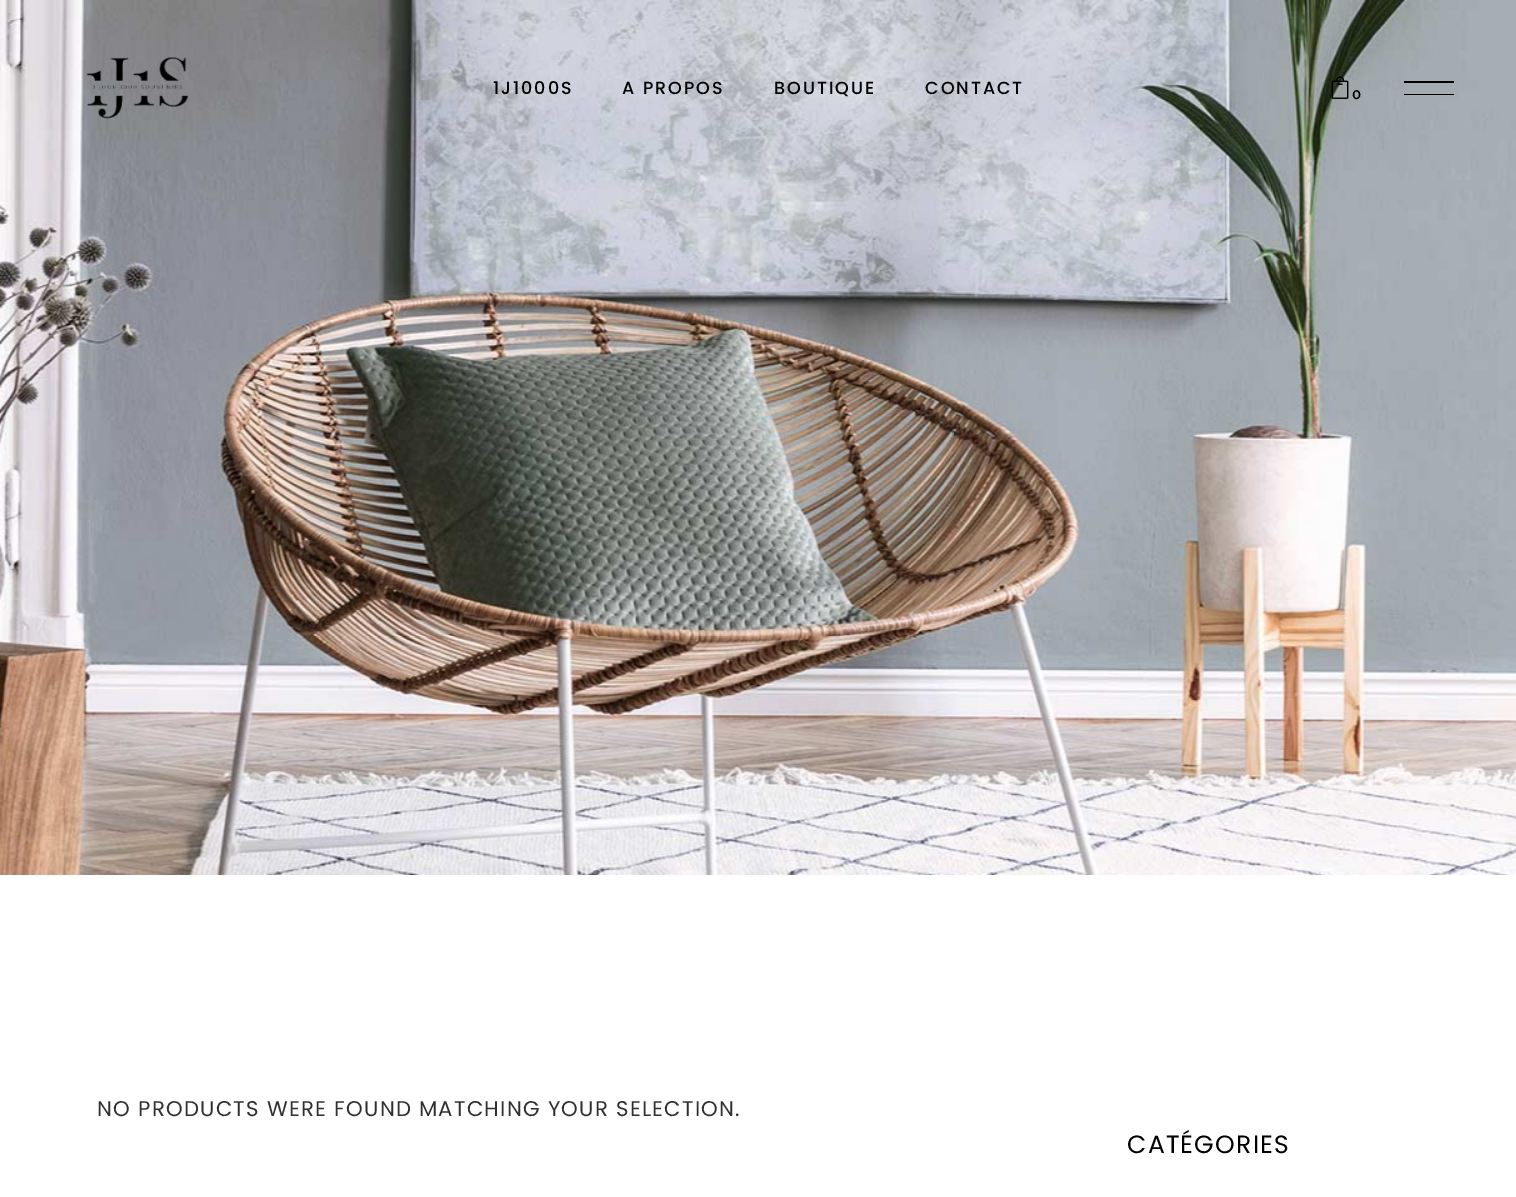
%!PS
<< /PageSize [1516 1197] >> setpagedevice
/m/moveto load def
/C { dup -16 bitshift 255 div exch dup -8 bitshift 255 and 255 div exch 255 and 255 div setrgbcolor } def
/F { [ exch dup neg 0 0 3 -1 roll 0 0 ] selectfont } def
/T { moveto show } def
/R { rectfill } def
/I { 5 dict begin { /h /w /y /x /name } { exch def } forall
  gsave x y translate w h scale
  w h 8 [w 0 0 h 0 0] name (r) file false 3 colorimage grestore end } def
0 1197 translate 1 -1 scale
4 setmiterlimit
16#FFFFFF C
0 0 1516 1197 R
(3.rgb) 0 0 1516 875 I
(1.rgb) 86 57 103 62 I
/Poppins-Medium 17.5 F
16#000000 C
493 94 m 2 0 (1J1000S) ashow
622 94 m 2 0 (A PROPOS) ashow
774 94 m 2 0 (BOUTIQUE) ashow
925 94 m 2 0 (CONTACT) ashow
(2.rgb) 1331 76 18 23 I
/Raleway-SemiBold 15 F
(0) 1352 99 T
1404 81 50 2 R
1404 94 50 1 R
/Poppins-Regular 21.25 F
16#303030 C
97 1116 m 1.25 0 (NO PRODUCTS WERE FOUND MATCHING YOUR SELECTION.) ashow
/Poppins-Regular 25 F
16#000000 C
1127 1153 m 1.25 0 (CATÉGORIES) ashow
showpage
